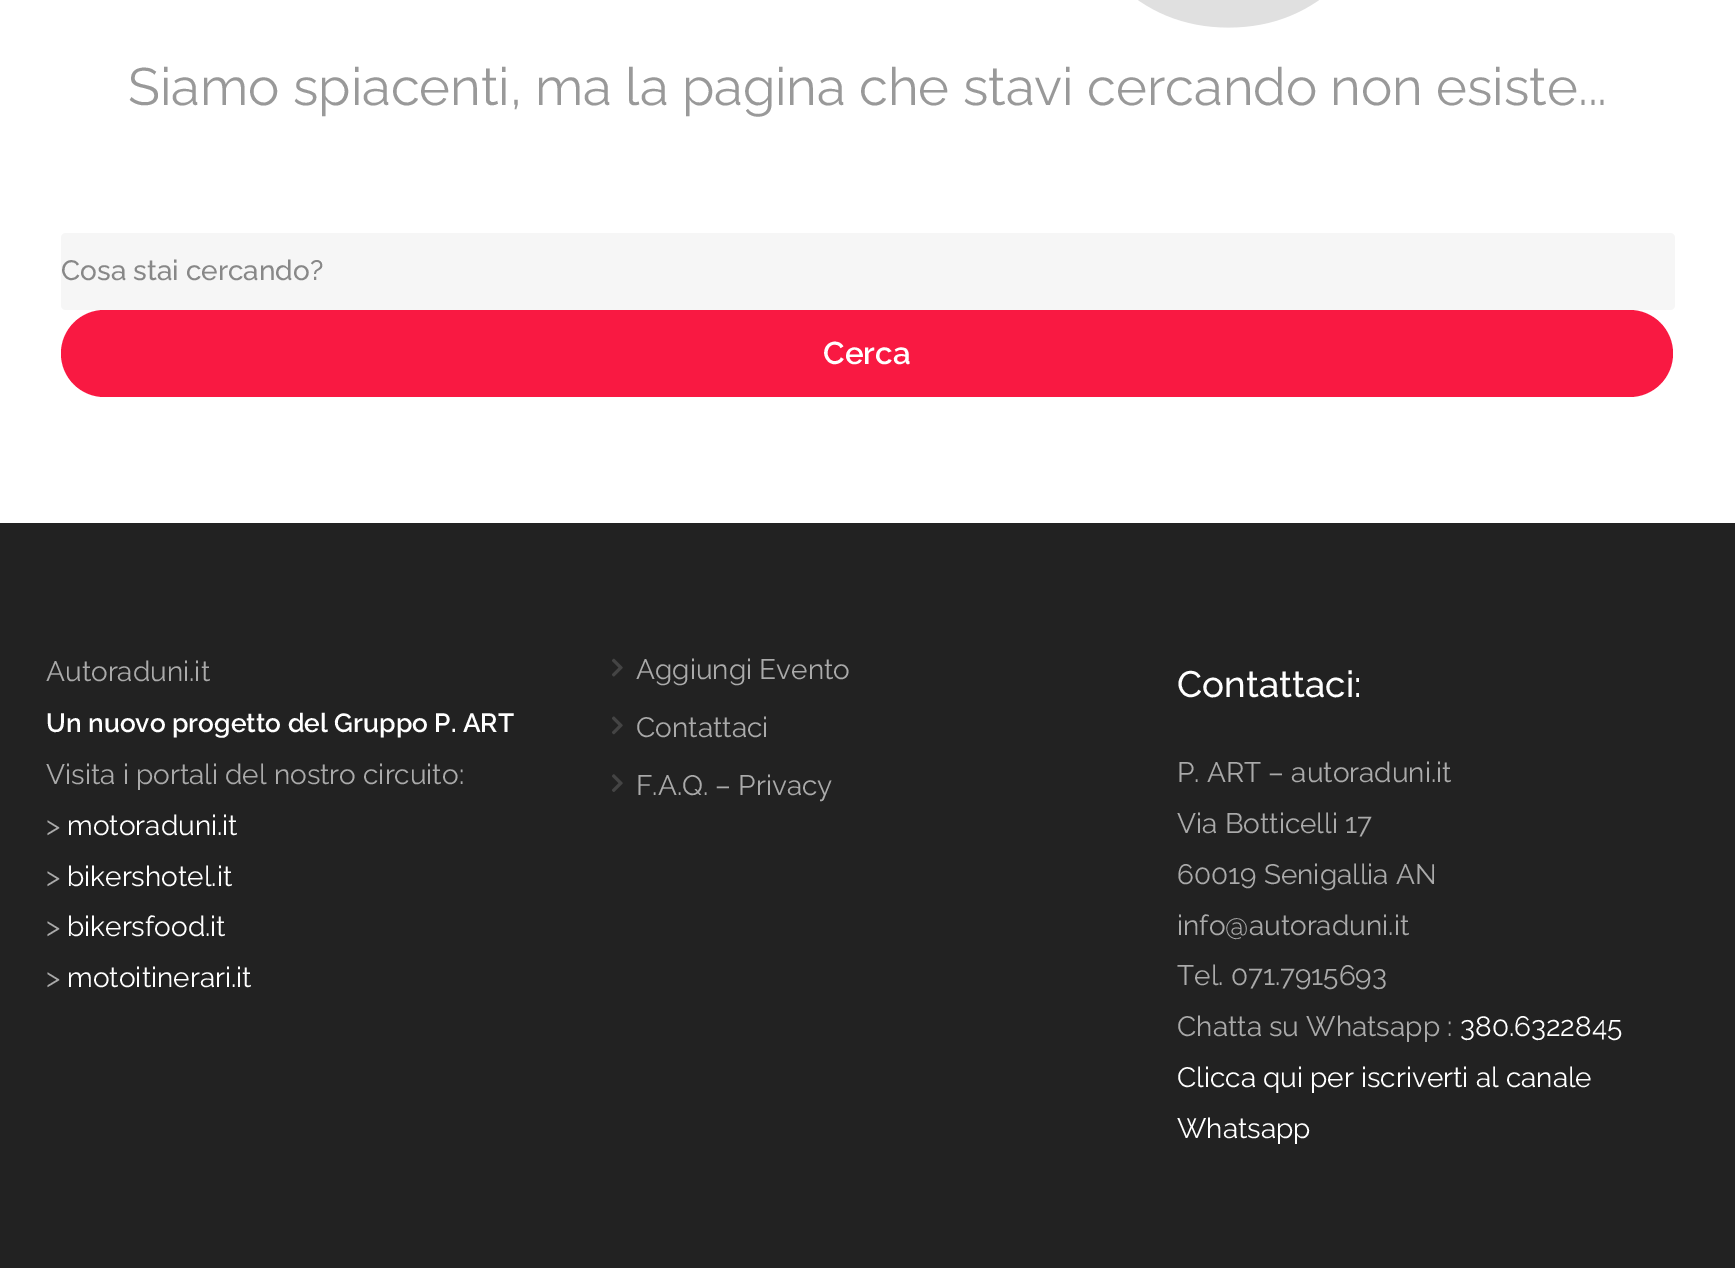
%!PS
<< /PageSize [1735 1268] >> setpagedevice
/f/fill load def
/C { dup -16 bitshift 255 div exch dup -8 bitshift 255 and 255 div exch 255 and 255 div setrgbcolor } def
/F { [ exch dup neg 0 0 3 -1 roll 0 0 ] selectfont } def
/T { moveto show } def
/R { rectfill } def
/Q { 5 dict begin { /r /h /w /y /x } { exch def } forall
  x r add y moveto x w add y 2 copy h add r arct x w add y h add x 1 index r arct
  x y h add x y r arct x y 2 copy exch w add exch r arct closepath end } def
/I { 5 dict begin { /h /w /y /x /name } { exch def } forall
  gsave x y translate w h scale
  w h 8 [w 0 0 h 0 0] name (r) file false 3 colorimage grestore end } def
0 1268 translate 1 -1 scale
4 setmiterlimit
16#FFFFFF C
0 0 1735 1268 R
(1.rgb) 1138 0 181 28 I
/Raleway-Thin 52.5 F
16#999999 C
(Siamo spiacenti, ma la pagina che stavi cercando non esiste...) 128 105 T
16#F6F6F6 C
61 233 1614 77 5 Q f
/Raleway-Medium 28 F
16#888888 C
(Cosa stai cercando?) 61 280 T
16#F91942 C
61 310 1612 87 43.5 Q f
/Raleway-SemiBold 31.5 F
16#FFFFFF C
(Cerca) 823 364 T
16#222222 C
0 523 1735 745 R
/Raleway-Thin 28 F
16#AAAAAA C
(Autoraduni.it) 46 681 T
/Raleway-SemiBold 26.25 F
16#FFFFFF C
(Un nuovo progetto del Gruppo P. ART) 46 732 T
/Raleway-Thin 28 F
16#AAAAAA C
(Visita i portali del nostro circuito:) 46 784 T
(>) 46 835 T
16#FFFFFF C
(motoraduni.it) 67 835 T
16#AAAAAA C
(>) 46 886 T
16#FFFFFF C
(bikershotel.it) 67 886 T
16#AAAAAA C
(>) 46 936 T
16#FFFFFF C
(bikersfood.it) 67 936 T
16#AAAAAA C
(>) 46 987 T
16#FFFFFF C
(motoitinerari.it) 67 987 T
(2.rgb) 612 658 11 19 I
16#AAAAAA C
(Aggiungi Evento) 636 679 T
(3.rgb) 612 716 11 19 I
(Contattaci) 636 737 T
(4.rgb) 612 774 11 18 I
(F.A.Q. – Privacy) 636 795 T
/Raleway-Medium 36.75 F
16#FFFFFF C
(Contattaci:) 1177 697 T
/Raleway-Thin 28 F
16#AAAAAA C
(P. ART – autoraduni.it) 1177 782 T
(Via Botticelli 17) 1177 833 T
(60019 Senigallia AN) 1177 884 T
(info@autoraduni.it) 1177 935 T
(Tel. 071.7915693) 1177 985 T
(Chatta su Whatsapp :) 1177 1036 T
16#FFFFFF C
(380.6322845) 1460 1036 T
(Clicca qui per iscriverti al canale) 1177 1087 T
(Whatsapp) 1177 1138 T
showpage
